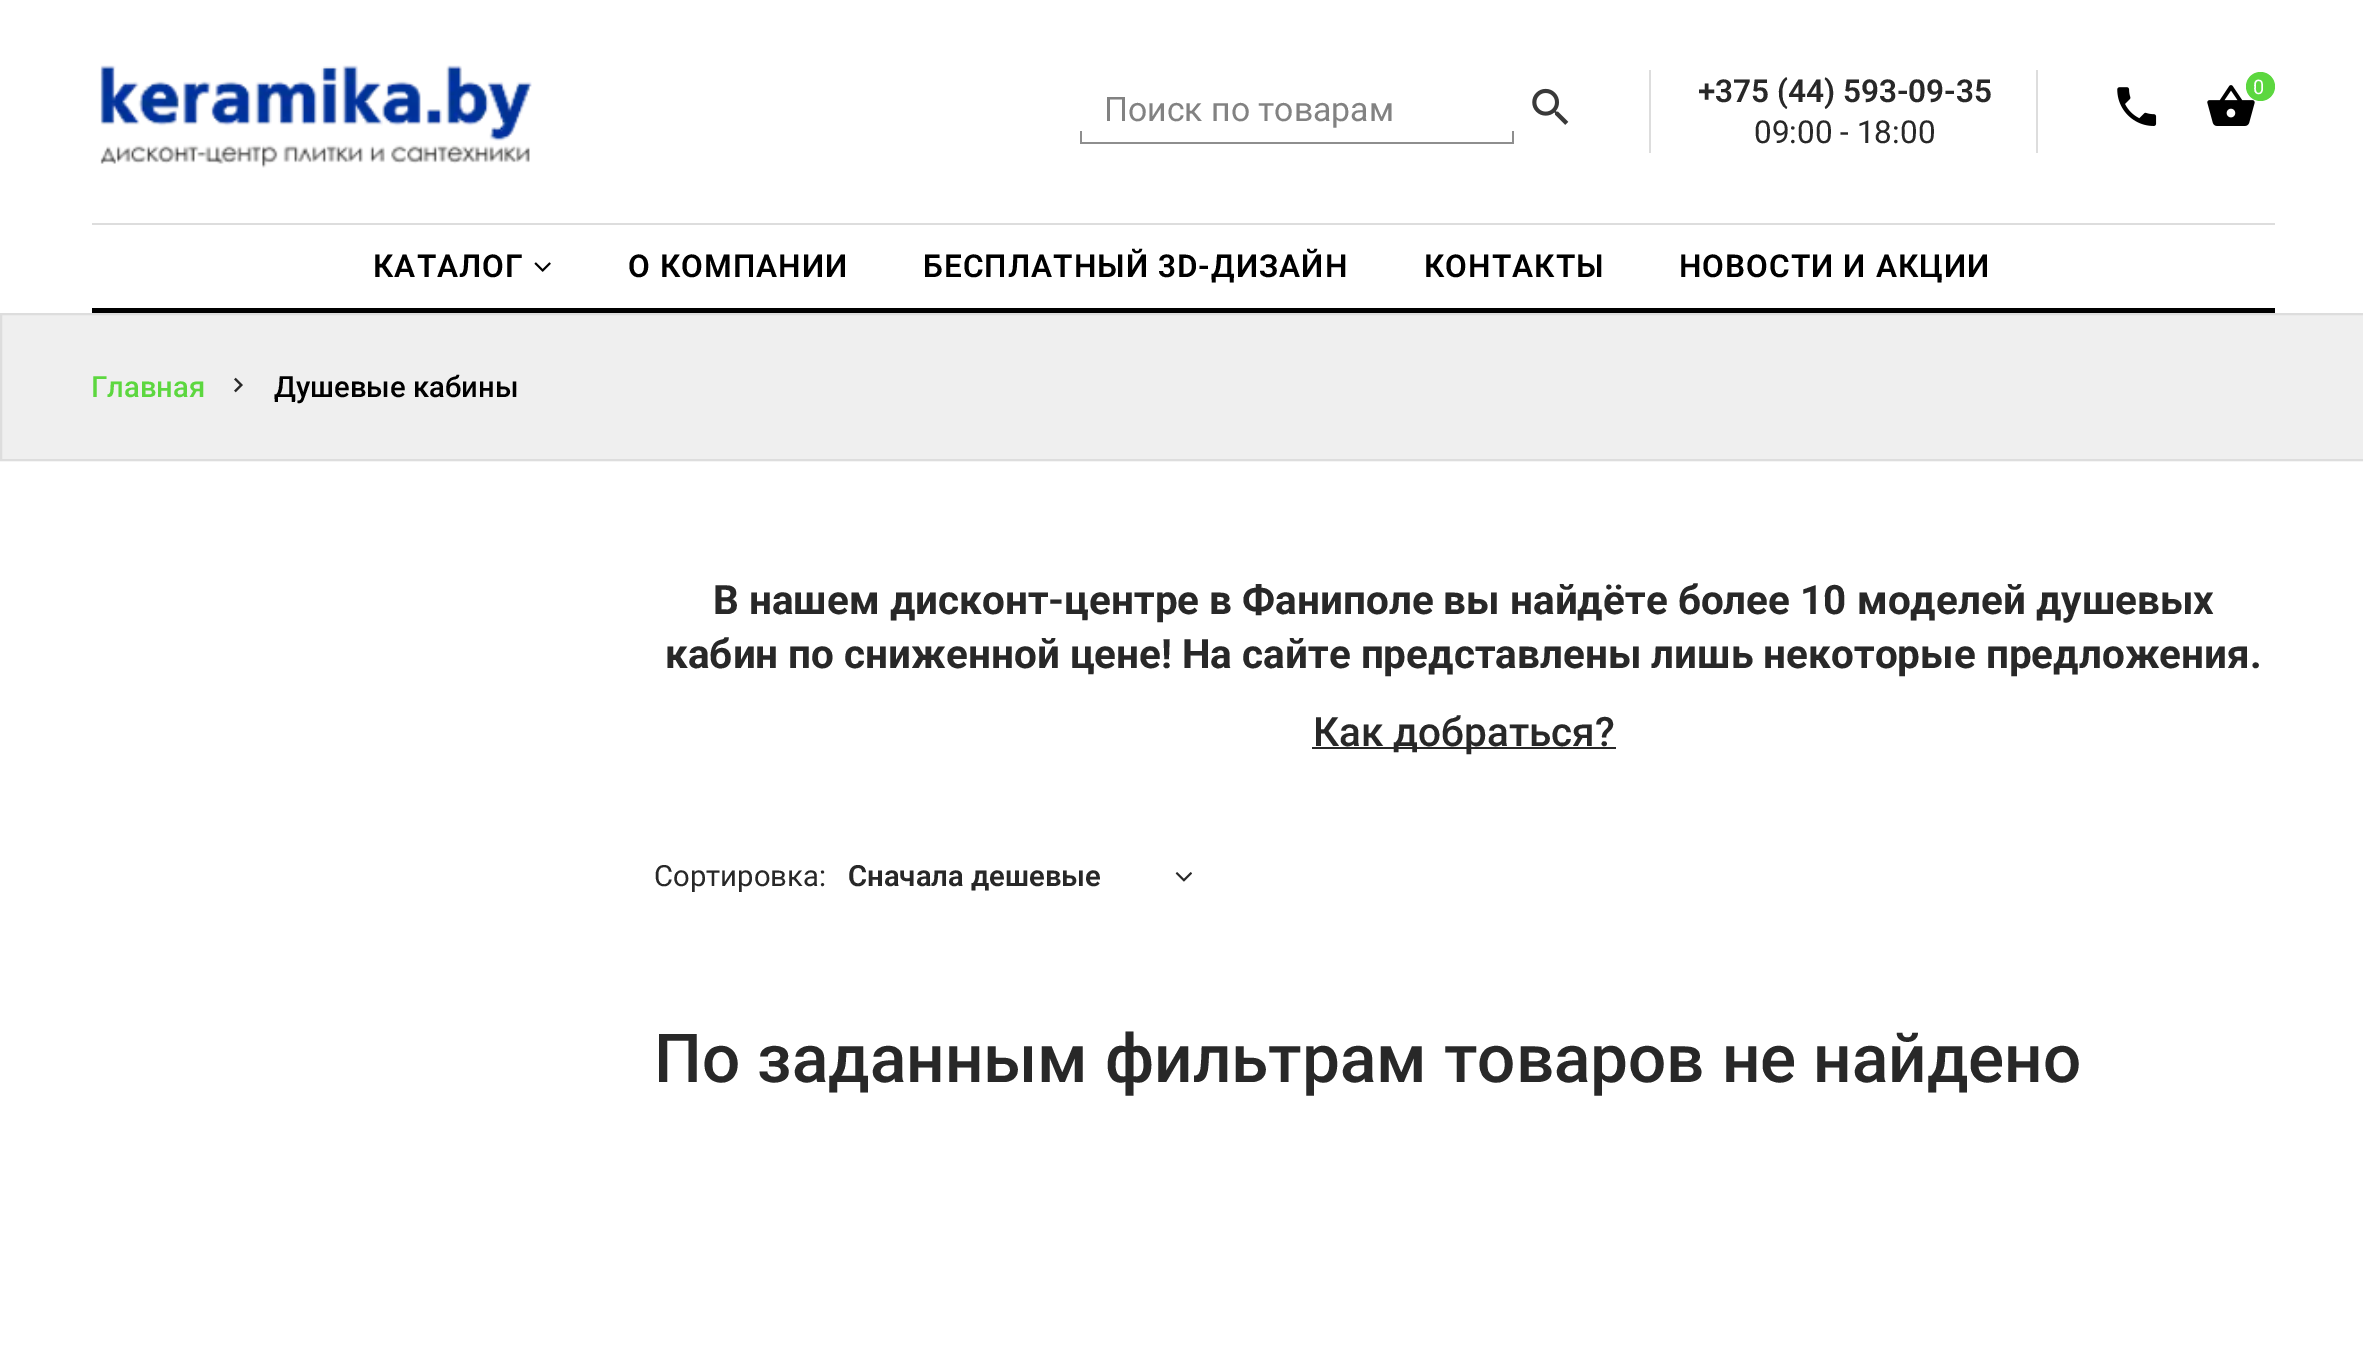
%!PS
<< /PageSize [2363 1353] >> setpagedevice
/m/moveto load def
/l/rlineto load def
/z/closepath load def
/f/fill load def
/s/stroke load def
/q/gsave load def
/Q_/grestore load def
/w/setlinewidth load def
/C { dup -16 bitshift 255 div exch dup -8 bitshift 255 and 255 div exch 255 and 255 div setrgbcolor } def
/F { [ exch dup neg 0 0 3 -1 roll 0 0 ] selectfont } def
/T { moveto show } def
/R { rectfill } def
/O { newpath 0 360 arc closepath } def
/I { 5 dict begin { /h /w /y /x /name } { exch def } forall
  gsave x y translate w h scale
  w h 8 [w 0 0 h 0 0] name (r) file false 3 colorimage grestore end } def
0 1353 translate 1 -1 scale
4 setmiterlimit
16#FFFFFF C
0 0 2363 1353 R
16#DDDDDD C
92 223 2183 2 R
(1.rgb) 100 65 432 103 I
2036 70 2 83 R
1649 70 2 83 R
/Roboto-SemiBold 31.5 F
16#282828 C
(+375 \(44\) 593-09-35) 1698 102 T
/Roboto-Regular 31.5 F
(09:00 - 18:00) 1754 143 T
(2.rgb) 2117 87 40 39 I
(3.rgb) 2207 85 48 41 I
16#5CD73F C
2260.5 86.5 14.5 O f
/Roboto-Regular 20 F
16#FFFFFF C
(0) 2253 94 T
16#8E8E8E C
1080 142 434 2 R
/Roboto-Regular 33.75 F
16#828282 C
(Поиск по товарам) 1104 121 T
(4.rgb) 1532 88 37 37 I
16#8E8E8E C
1080 131 2 13 R
1512 131 2 13 R
16#000000 C
92 308 2183 5 R
/Roboto-SemiBold 31.5 F
373 277 m 1.1 0 (КАТАЛОГ) ashow
(5.rgb) 534 262 17 10 I
628 277 m 1.1 0 (О КОМПАНИИ) ashow
923 277 m 1.1 0 (БЕСПЛАТНЫЙ 3D-ДИЗАЙН) ashow
1424 277 m 1.1 0 (КОНТАКТЫ) ashow
1679 277 m 1.1 0 (НОВОСТИ И АКЦИИ) ashow
16#EFEFEF C
1 314 m 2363 0 l 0 146 l -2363 0 l z q f Q_
16#DDDDDD C
2 w
s
/Roboto-Medium 29.25 F
16#5CD73F C
(Главная) 91 397 T
(6.rgb) 234 377 9 16 I
16#000000 C
(Душевые кабины) 274 397 T
/Roboto-Bold 40.5 F
16#282828 C
(В нашем дисконт-центре в Фаниполе вы найдёте более 10 моделей душевых) 713 614 T
(кабин по сниженной цене! На сайте представлены лишь некоторые предложения.) 665 668 T
1312 747 304 2 R
/Roboto-Medium 40.5 F
(Как добраться?) 1313 746 T
/Roboto-Regular 29.25 F
(Сортировка:) 654 886 T
/Roboto-SemiBold 29.25 F
(Сначала дешевые) 848 886 T
(7.rgb) 1175 872 17 10 I
/Roboto-Medium 67.5 F
(По заданным фильтрам товаров не найдено) 654 1082 T
showpage
